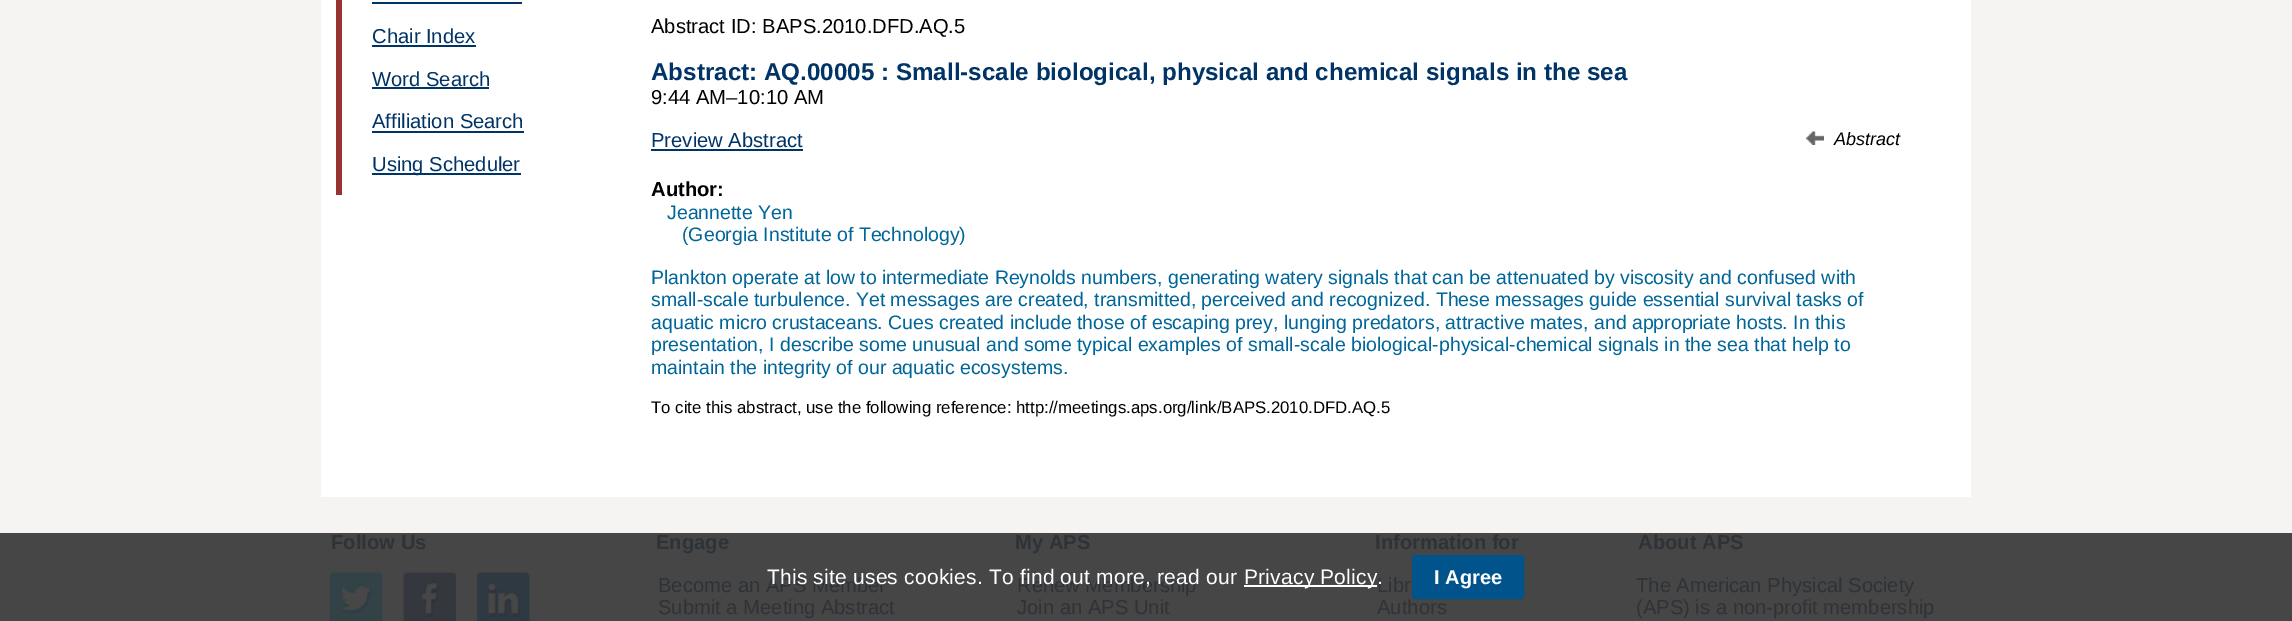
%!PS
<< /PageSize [2292 621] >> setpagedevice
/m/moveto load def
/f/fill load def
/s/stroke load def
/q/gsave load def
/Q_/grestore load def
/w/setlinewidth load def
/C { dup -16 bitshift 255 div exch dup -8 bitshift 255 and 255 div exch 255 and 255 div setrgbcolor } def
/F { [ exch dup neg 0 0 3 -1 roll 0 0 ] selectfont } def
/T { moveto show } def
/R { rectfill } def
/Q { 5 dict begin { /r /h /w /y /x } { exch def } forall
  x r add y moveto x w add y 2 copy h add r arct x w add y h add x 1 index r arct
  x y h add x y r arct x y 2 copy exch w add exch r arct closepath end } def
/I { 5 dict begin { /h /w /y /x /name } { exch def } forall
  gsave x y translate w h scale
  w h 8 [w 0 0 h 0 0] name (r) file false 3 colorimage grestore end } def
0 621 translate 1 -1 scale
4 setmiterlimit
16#F6F4F2 C
0 0 2292 621 R
16#474646 C
0 533 2292 88 R
16#FFFFFF C
321 0 1650 497 R
16#993333 C
336 0 6 195 R
16#003366 C
372 2 150 2 R
/LiberationSans-Regular 20.2 F
(Chair Index) 372 43 T
372 45 104 2 R
(Word Search) 372 86 T
372 87 117 2 R
(Affiliation Search) 372 128 T
372 131 152 2 R
372 173 149 2 R
(Using Scheduler) 372 171 T
16#000000 C
(Abstract ID: BAPS.2010.DFD.AQ.5) 651 33 T
/LiberationSans-Bold 24.2 F
16#003366 C
(Abstract: AQ.00005 : Small-scale biological, physical and chemical signals in the sea) 651 80 T
/LiberationSans-Regular 20.2 F
16#000000 C
(9:44 AM–10:10 AM) 651 104 T
16#003366 C
(Preview Abstract) 651 147 T
651 149 152 2 R
(1.rgb) 1806 131 18 14 I
/LiberationSans-Italic 18 F
16#000000 C
(Abstract) 1834 145 T
/LiberationSans-Bold 20.2 F
(Author:) 651 196 T
/LiberationSans-Regular 19.5 F
16#006699 C
(Jeannette Yen) 667 219 T
(\(Georgia Institute of Technology\)) 682 241 T
(Plankton operate at low to intermediate Reynolds numbers, generating watery signals that can be attenuated by viscosity and confused with) 651 284 T
(small-scale turbulence. Yet messages are created, transmitted, perceived and recognized. These messages guide essential survival tasks of) 651 306 T
(aquatic micro crustaceans. Cues created include those of escaping prey, lunging predators, attractive mates, and appropriate hosts. In this) 651 329 T
(presentation, I describe some unusual and some typical examples of small-scale biological-physical-chemical signals in the sea that help to) 651 351 T
(maintain the integrity of our aquatic ecosystems.) 651 374 T
/LiberationSans-Regular 16.8 F
16#000000 C
(To cite this abstract, use the following reference: http://meetings.aps.org/link/BAPS.2010.DFD.AQ.5) 651 413 T
/LiberationSans-Bold 20.2 F
16#2E3338 C
(Follow Us) 331 549 T
(2.rgb) 330 572 53 49 I
(3.rgb) 403 572 53 49 I
(4.rgb) 477 572 53 49 I
(Engage) 656 549 T
/LiberationSans-Regular 20.2 F
(Become an APS Member) 658 592 T
(Submit a Meeting Abstract) 658 614 T
/LiberationSans-Bold 20.2 F
(My APS) 1015 549 T
/LiberationSans-Regular 20.2 F
(Renew Membership) 1017 592 T
(Join an APS Unit) 1017 614 T
/LiberationSans-Bold 20.2 F
(Information for) 1375 549 T
/LiberationSans-Regular 20.2 F
(Libr) 1377 592 T
(Authors) 1377 614 T
/LiberationSans-Bold 20.2 F
(About APS) 1638 549 T
/LiberationSans-Regular 20.2 F
(The American Physical Society) 1636 592 T
(\(APS\) is a non-profit membership) 1636 614 T
/LiberationSans-Regular 21 F
16#FFFFFF C
767 584 m .2 0 (This site uses cookies. To find out more, read our) ashow
1244 585 133 2 R
1244 584 m .2 0 (Privacy Policy.) ashow
16#00538B C
1413 556 110 42 2 Q q f Q_
2 w
s
/LiberationSans-Bold 20 F
16#FFFFFF C
(I Agree) 1434 584 T
showpage
